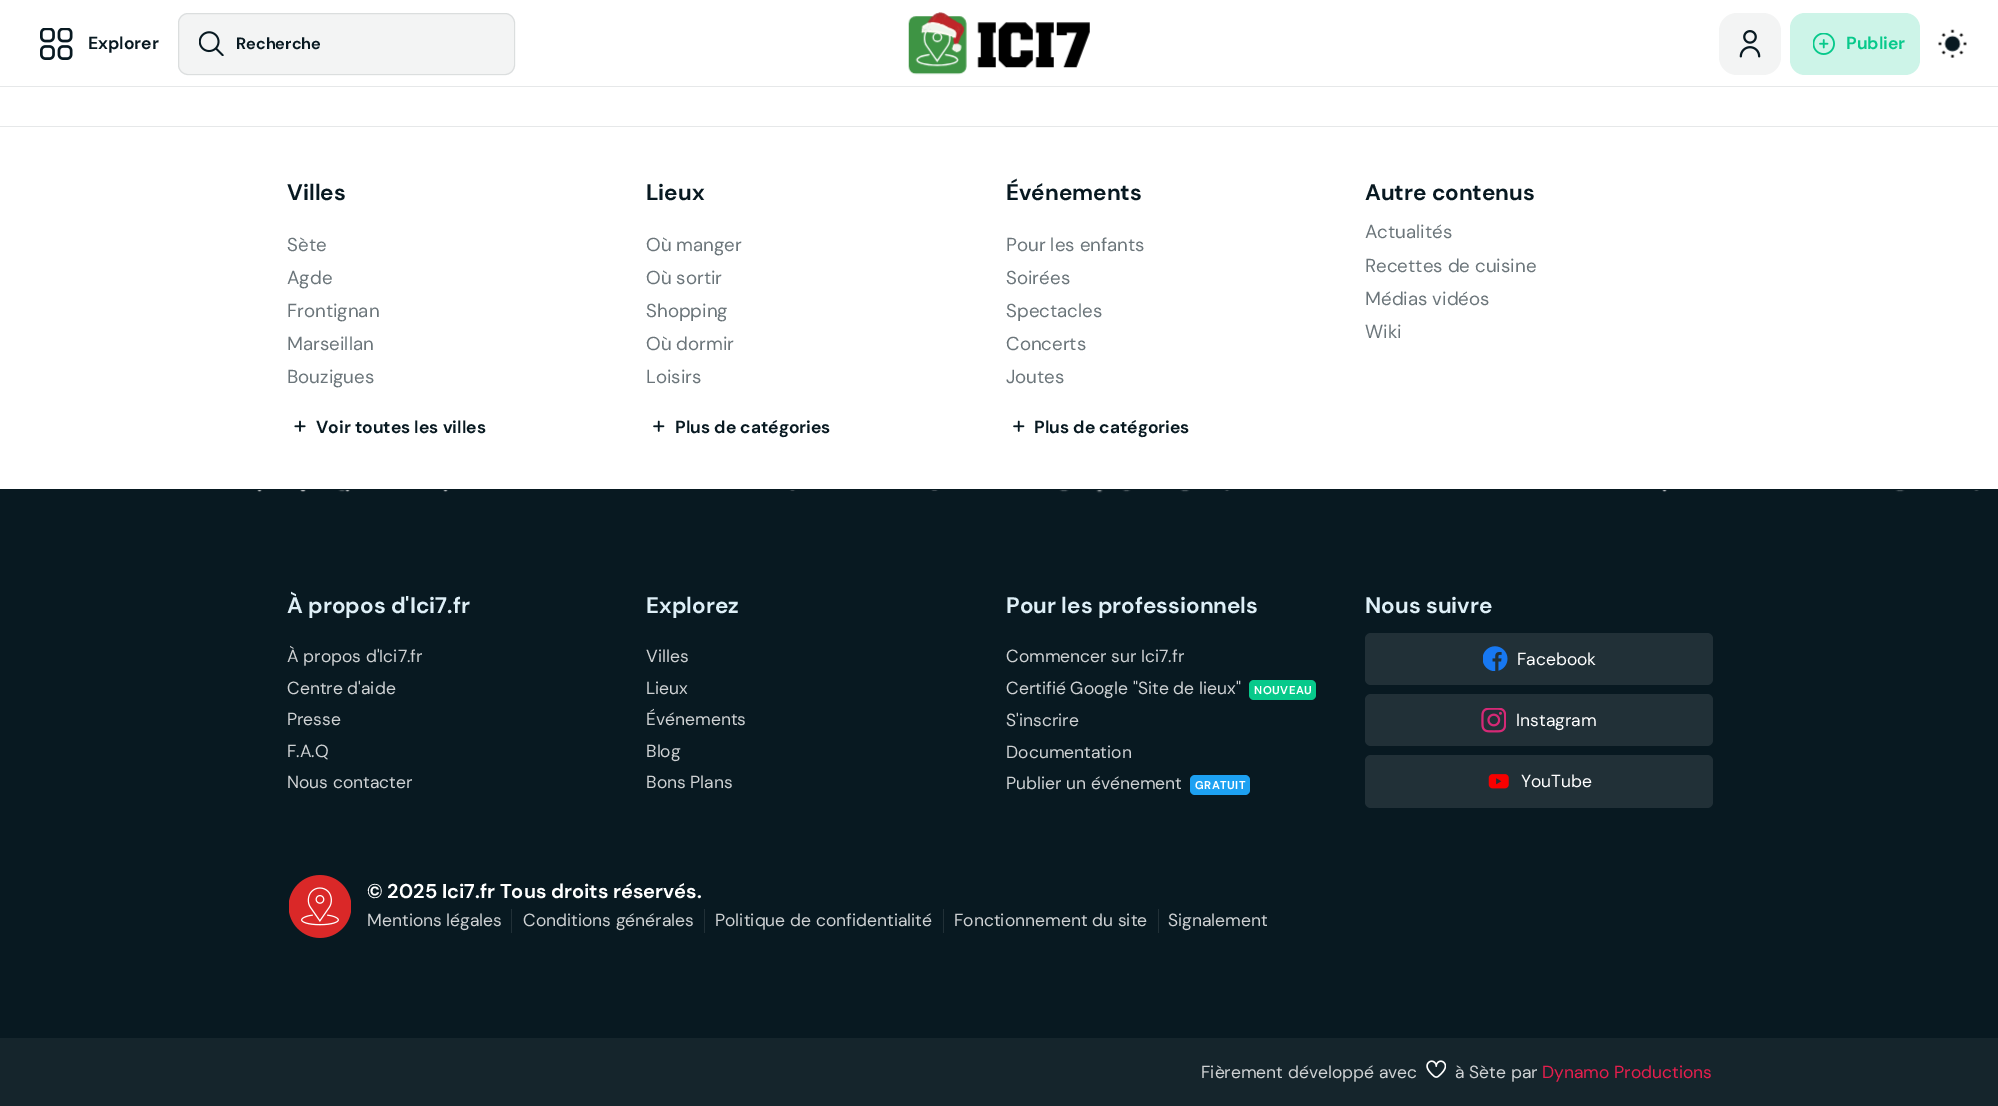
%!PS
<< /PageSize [1998 1106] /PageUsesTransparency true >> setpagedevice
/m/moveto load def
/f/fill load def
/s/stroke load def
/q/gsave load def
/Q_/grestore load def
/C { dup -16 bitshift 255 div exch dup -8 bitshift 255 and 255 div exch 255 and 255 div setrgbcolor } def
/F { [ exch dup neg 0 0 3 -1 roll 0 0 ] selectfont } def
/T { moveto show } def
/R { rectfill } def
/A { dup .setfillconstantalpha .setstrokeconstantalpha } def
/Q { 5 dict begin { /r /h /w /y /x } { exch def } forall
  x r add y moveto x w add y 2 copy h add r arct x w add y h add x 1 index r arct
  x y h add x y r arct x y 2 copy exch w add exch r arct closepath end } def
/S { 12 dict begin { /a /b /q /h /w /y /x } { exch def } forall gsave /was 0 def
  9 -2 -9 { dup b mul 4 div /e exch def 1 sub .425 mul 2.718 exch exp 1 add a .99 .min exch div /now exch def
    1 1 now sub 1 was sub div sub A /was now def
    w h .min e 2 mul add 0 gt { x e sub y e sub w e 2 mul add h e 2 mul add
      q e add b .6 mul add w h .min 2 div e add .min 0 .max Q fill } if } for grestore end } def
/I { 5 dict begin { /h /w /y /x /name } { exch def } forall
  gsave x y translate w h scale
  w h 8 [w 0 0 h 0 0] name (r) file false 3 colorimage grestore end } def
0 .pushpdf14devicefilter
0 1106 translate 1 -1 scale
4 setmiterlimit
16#FFFFFF C
0 0 1998 1106 R
16#E6E8E9 C
0 86 1998 1 R
(1.rgb) 40 28 33 32 I
/DMSans-Bold 17.5 F
16#081921 C
(Explorer) 88 49 T
16#F3F4F4 C
178 13 337 62 10 Q f
0.1 A
16#081921 C
178.5 13.5 336 61 9.5 Q s
1 A
(2.rgb) 199 31 25 25 I
/DMSans-Bold 16.25 F
(Recherche) 236 49 T
(3.rgb) 908 12 182 63 I
16#F3F4F4 C
1719 13 62 62 18 Q f
(4.rgb) 1739 30 22 28 I
16#CDF4E8 C
1790 13 130 62 15 Q f
(5.rgb) 1813 33 22 22 I
/DMSans-Bold 17.5 F
16#07C98B C
(Publier) 1846 49 T
(6.rgb) 1938 29 29 29 I
16#E6E8E9 C
0 126 1998 1 R
/DMSans-Bold 22.5 F
16#081921 C
(Villes) 287 200 T
/DMSans-Regular 18.75 F
16#6B757A C
(Sète) 287 251 T
(Agde) 287 284 T
(Frontignan) 287 317 T
(Marseillan) 287 350 T
(Bouzigues) 287 383 T
(7.rgb) 294 420 12 12 I
/DMSans-Bold 17.5 F
16#081921 C
(Voir toutes les villes) 316 433 T
/DMSans-Bold 22.5 F
(Lieux) 646 200 T
/DMSans-Regular 18.75 F
16#6B757A C
(Où manger) 646 251 T
(Où sortir) 646 284 T
(Shopping) 646 317 T
(Où dormir) 646 350 T
(Loisirs) 646 383 T
(8.rgb) 653 420 12 12 I
/DMSans-Bold 17.5 F
16#081921 C
(Plus de catégories) 675 433 T
/DMSans-Bold 22.5 F
(Événements) 1006 200 T
/DMSans-Regular 18.75 F
16#6B757A C
(Pour les enfants) 1006 251 T
(Soirées) 1006 284 T
(Spectacles) 1006 317 T
(Concerts) 1006 350 T
(Joutes) 1006 383 T
(8.rgb) 1013 420 12 12 I
/DMSans-Bold 17.5 F
16#081921 C
(Plus de catégories) 1034 433 T
/DMSans-Bold 22.5 F
(Autre contenus) 1365 200 T
/DMSans-Regular 18.75 F
16#6B757A C
(Actualités) 1365 238 T
(Recettes de cuisine) 1365 272 T
(Médias vidéos) 1365 305 T
(Wiki) 1365 338 T
16#081921 C
0 489 1998 549 R
q
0 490 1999 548 rectclip
16#CED1D3 C
258 488 3 3 1.5 .5 1 S
301 488 4 3 1.5 .5 1 S
339 484 6 6 3 1 1 S
790 486 5 4 2 .5 1 S
931 485 7 5 2.5 .5 1 S
1060 483 8 7 3.5 1 1 S
1098 488 3 3 1.5 1 1 S
1123 483 7 7 3.5 1 1 S
1181 483 8 7 3.5 1 1 S
1224 484 6 6 3 .5 1 S
1896 483 8 7 3.5 1 1 S
1973 481 7 9 3.5 .5 1 S
16#FFFFFF C
346 488 3 3 1.5 .5 .8 S
16#CED1D3 C
444 488 3 3 1.5 .5 1 S
1663 488 3 3 1.5 .5 1 S
Q_
/DMSans-Bold 22.5 F
16#DEEFF7 C
(À propos d'Ici7.fr) 287 613 T
/DMSans-Regular 17.5 F
16#CED1D3 C
(À propos d'Ici7.fr) 287 662 T
(Centre d'aide) 287 694 T
(Presse) 287 725 T
(F.A.Q) 287 757 T
(Nous contacter) 287 788 T
/DMSans-Bold 22.5 F
16#DEEFF7 C
(Explorez) 646 613 T
/DMSans-Regular 17.5 F
16#CED1D3 C
(Villes) 646 662 T
(Lieux) 646 694 T
(Événements) 646 725 T
(Blog) 646 757 T
(Bons Plans) 646 788 T
/DMSans-Bold 22.5 F
16#DEEFF7 C
(Pour les professionnels) 1006 613 T
/DMSans-Regular 17.5 F
16#CED1D3 C
(Commencer sur Ici7.fr) 1006 662 T
(Certifié Google "Site de lieux") 1006 694 T
16#07C98B C
1249 680 67 20 5 Q f
/DMSans-Bold 11.25 F
16#FFFFFF C
1254 694 m .5 0 (NOUVEAU) ashow
/DMSans-Regular 17.5 F
16#CED1D3 C
(S'inscrire) 1006 726 T
(Documentation) 1006 758 T
(Publier un événement) 1006 789 T
16#1DA1F2 C
1190 775 60 20 5 Q f
/DMSans-Bold 11.25 F
16#FFFFFF C
1195 789 m .5 0 (GRATUIT) ashow
/DMSans-Bold 22.5 F
16#DEEFF7 C
(Nous suivre) 1365 613 T
16#213037 C
1365 633 348 52 6 Q f
(9.rgb) 1483 646 25 25 I
/DMSans-Regular 17.5 F
16#FFFFFF C
(Facebook) 1517 665 T
16#213037 C
1365 694 348 52 6 Q f
(10.rgb) 1481 708 25 25 I
16#FFFFFF C
(Instagram) 1516 726 T
16#213037 C
1365 755 348 53 6 Q f
(11.rgb) 1488 774 21 15 I
16#FFFFFF C
(YouTube) 1521 787 T
(12.rgb) 289 875 62 63 I
/DMSans-Bold 20 F
(© 2025 Ici7.fr Tous droits réservés.) 367 898 T
/DMSans-Regular 17.5 F
16#CED1D3 C
(Mentions légales) 367 926 T
16#213037 C
511 909 1 24 R
16#CED1D3 C
(Conditions générales) 523 926 T
16#213037 C
704 909 1 24 R
16#CED1D3 C
(Politique de confidentialité) 715 926 T
16#213037 C
943 909 1 24 R
16#CED1D3 C
(Fonctionnement du site) 954 926 T
16#213037 C
1158 909 1 24 R
16#CED1D3 C
(Signalement) 1168 926 T
16#15252C C
0 1038 1998 68 R
16#CED1D3 C
(Fièrement développé avec) 1201 1078 T
(13.rgb) 1426 1060 20 18 I
(à Sète par) 1455 1078 T
16#E61E4D C
(Dynamo Productions) 1542 1078 T
.poppdf14devicefilter showpage
